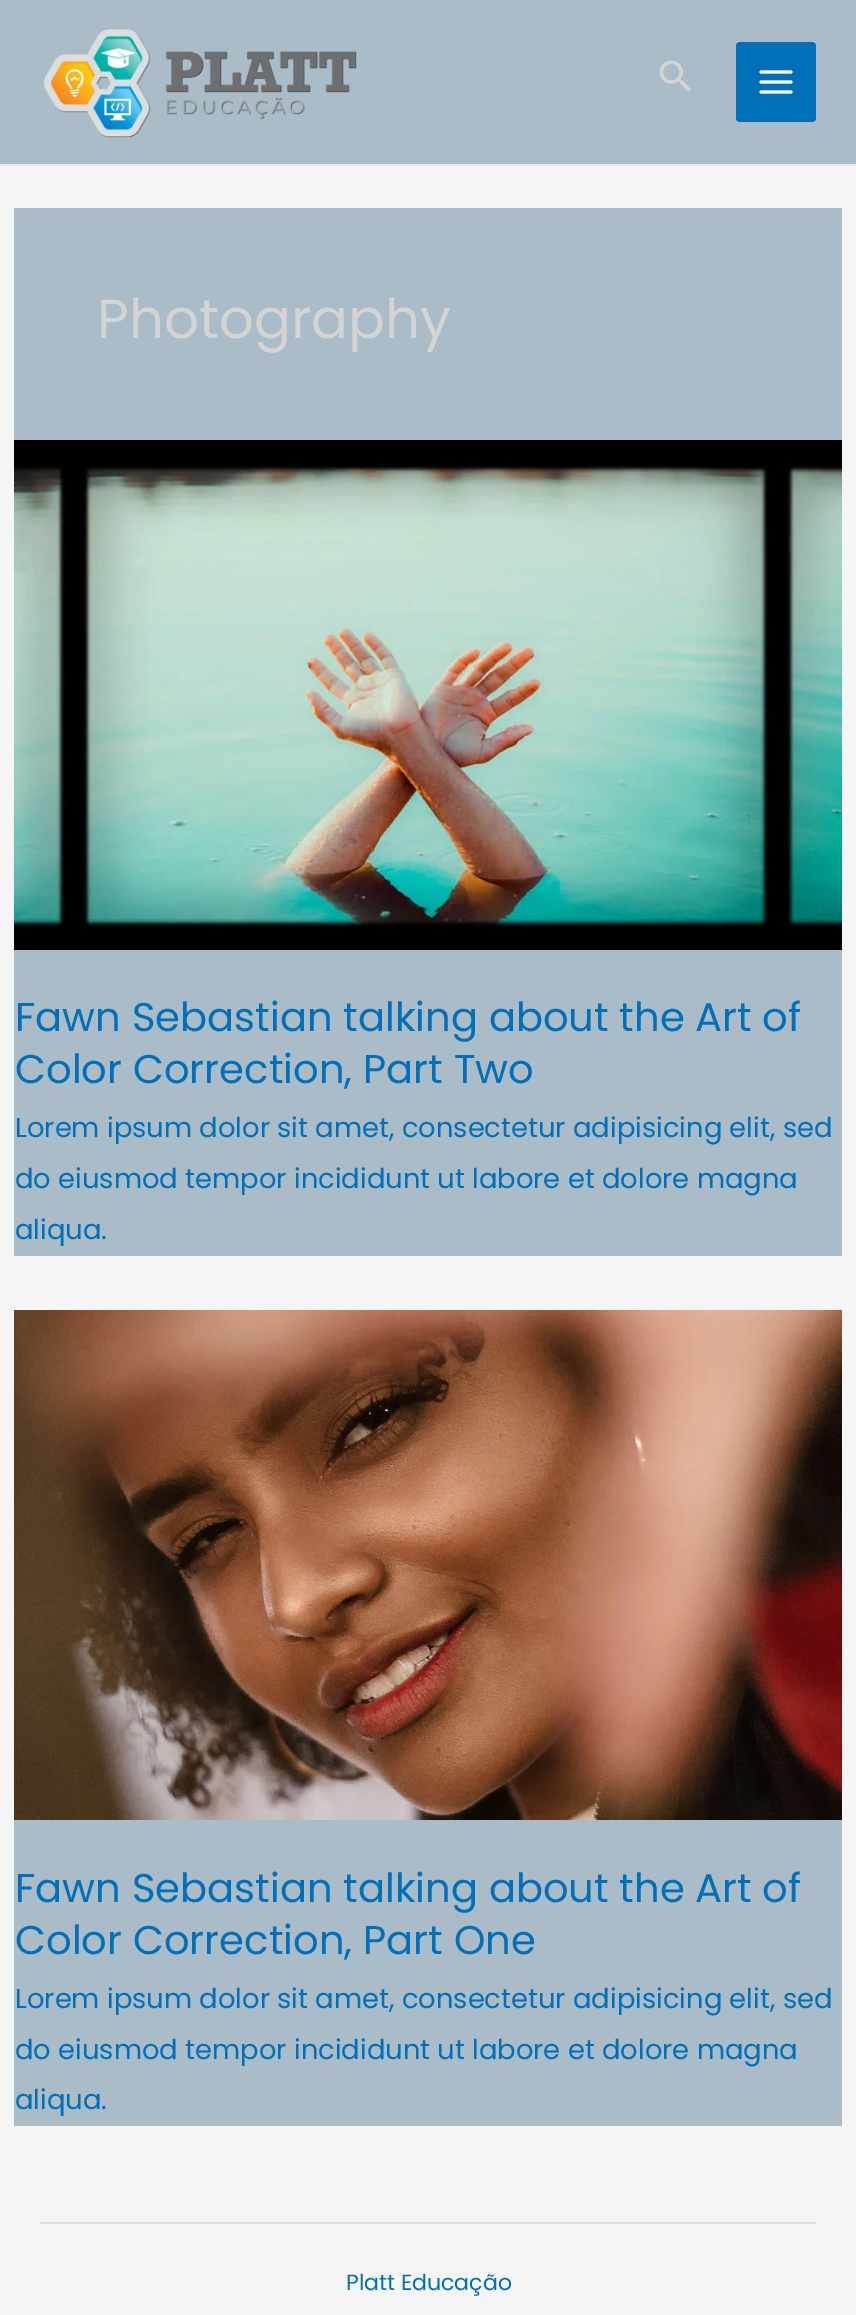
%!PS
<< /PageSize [856 2315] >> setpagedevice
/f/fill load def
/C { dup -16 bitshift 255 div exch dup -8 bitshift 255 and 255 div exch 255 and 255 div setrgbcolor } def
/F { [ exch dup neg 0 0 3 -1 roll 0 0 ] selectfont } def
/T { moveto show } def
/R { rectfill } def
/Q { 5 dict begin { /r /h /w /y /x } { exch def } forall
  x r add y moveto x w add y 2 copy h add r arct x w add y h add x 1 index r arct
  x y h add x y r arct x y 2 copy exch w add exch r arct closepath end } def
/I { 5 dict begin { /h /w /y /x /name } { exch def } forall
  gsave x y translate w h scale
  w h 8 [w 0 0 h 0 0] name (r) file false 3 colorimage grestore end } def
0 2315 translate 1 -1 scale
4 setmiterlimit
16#F5F5F5 C
0 0 856 2315 R
16#AABCC8 C
0 0 856 164 R
16#EAEAEA C
0 164 856 2 R
(1.rgb) 43 29 314 109 I
(2.rgb) 659 60 32 32 I
16#0170B9 C
736 42 80 80 4 Q f
(3.rgb) 759 70 34 24 I
16#AABCC8 C
14 208 828 232 R
/Poppins-Regular 54.75 F
16#D4D4D4 C
(Photography) 97 338 T
16#AABCC8 C
14 950 828 306 R
(4.rgb) 14 440 828 510 I
/Poppins-Regular 40.1 F
16#0170B9 C
(Fawn Sebastian talking about the Art of) 15 1031 T
(Color Correction, Part Two) 15 1083 T
/Poppins-Regular 27.35 F
(Lorem ipsum dolor sit amet, consectetur adipisicing elit, sed) 15 1137 T
(do eiusmod tempor incididunt ut labore et dolore magna) 15 1188 T
(aliqua.) 15 1239 T
16#AABCC8 C
14 1820 828 306 R
(5.rgb) 14 1310 828 510 I
/Poppins-Regular 40.1 F
16#0170B9 C
(Fawn Sebastian talking about the Art of) 15 1902 T
(Color Correction, Part One) 15 1954 T
/Poppins-Regular 27.35 F
(Lorem ipsum dolor sit amet, consectetur adipisicing elit, sed) 15 2008 T
(do eiusmod tempor incididunt ut labore et dolore magna) 15 2059 T
(aliqua.) 15 2109 T
16#DDDDDD C
40 2222 776 2 R
/Poppins-Regular 22 F
16#0170B9 C
(Platt Educação) 346 2290 T
showpage
